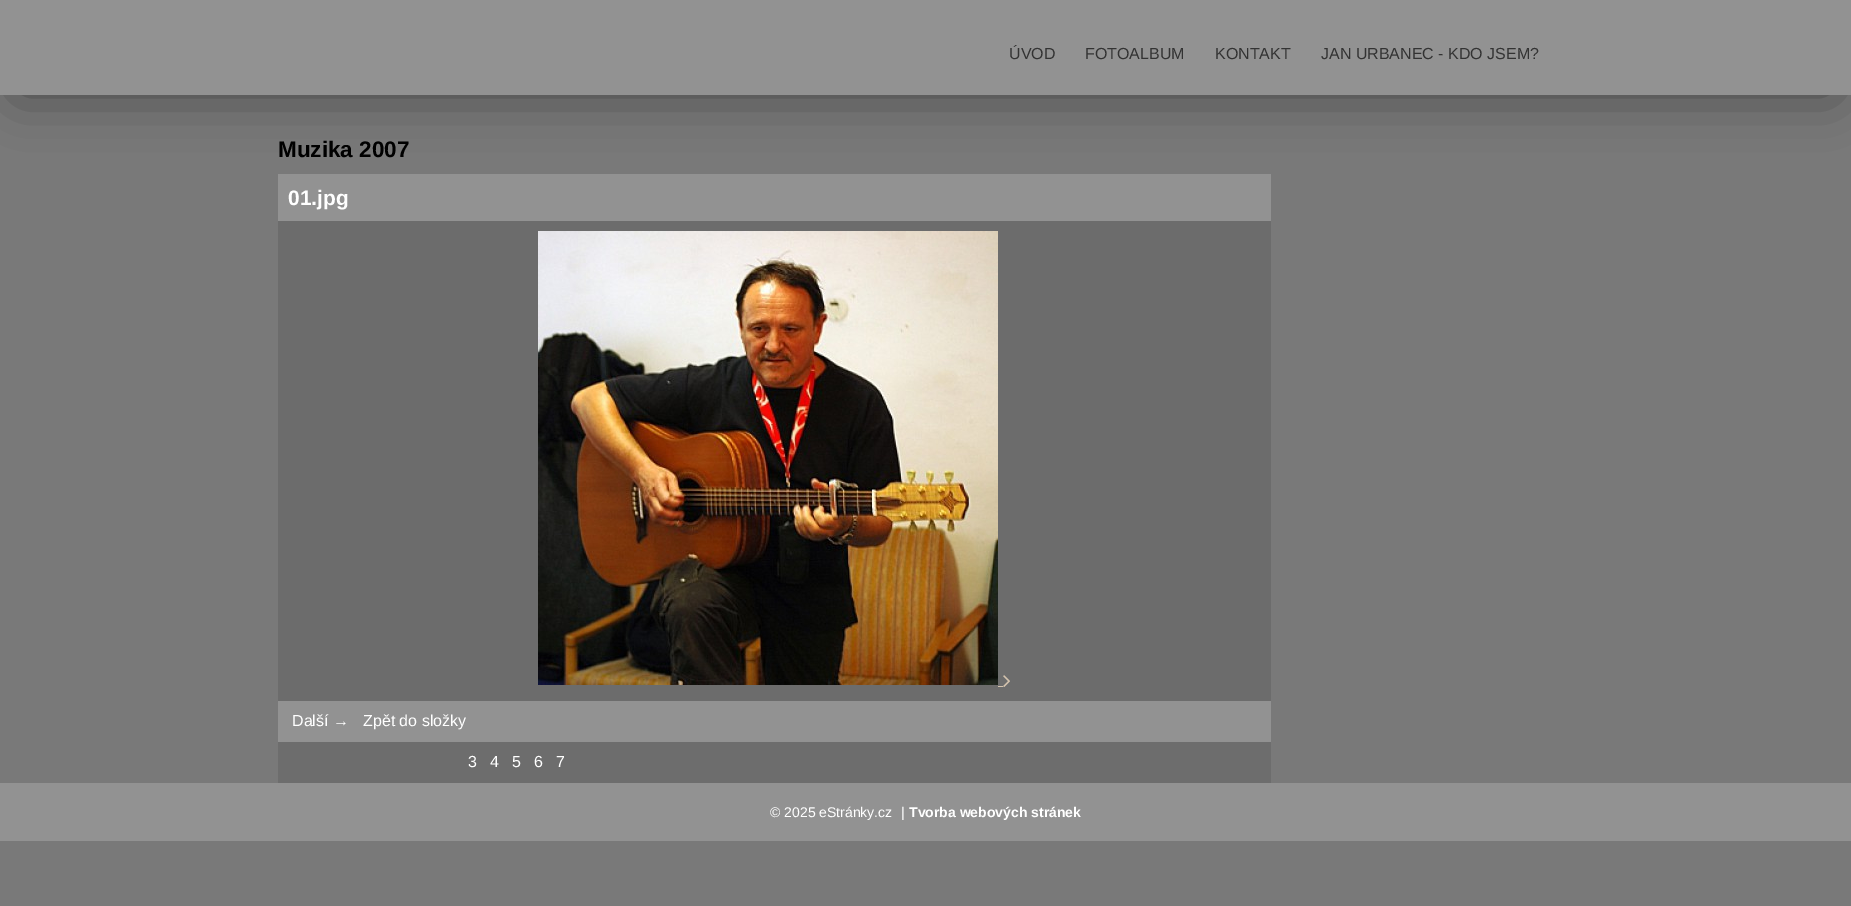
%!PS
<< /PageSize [1851 906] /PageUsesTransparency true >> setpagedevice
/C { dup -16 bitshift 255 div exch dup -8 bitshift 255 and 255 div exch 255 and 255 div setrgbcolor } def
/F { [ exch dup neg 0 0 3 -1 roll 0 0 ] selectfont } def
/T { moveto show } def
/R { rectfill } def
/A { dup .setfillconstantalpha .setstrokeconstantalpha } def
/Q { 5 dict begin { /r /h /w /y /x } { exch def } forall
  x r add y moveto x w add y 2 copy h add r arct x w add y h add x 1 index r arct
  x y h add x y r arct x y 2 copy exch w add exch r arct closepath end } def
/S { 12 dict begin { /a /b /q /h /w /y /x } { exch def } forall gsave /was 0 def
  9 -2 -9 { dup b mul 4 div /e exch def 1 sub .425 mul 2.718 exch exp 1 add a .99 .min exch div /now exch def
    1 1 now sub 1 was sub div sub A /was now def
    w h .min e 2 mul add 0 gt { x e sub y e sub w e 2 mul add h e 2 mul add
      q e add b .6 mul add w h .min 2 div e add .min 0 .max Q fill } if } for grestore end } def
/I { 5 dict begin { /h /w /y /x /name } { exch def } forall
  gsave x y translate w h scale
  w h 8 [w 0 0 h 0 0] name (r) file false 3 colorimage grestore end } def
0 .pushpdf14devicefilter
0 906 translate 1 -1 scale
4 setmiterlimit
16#797979 C
0 0 1851 906 R
16#000000 C
18 33 1815 59 0 27 .45 S
16#929292 C
0 0 1851 95 R
/LiberationSans-Regular 16 F
16#333333 C
(ÚVOD) 1009 59 T
(FOTOALBUM) 1085 59 T
(KONTAKT) 1215 59 T
(JAN URBANEC - KDO JSEM?) 1321 59 T
/LiberationSans-Bold 22.5 F
16#000000 C
(Muzika 2007) 278 157 T
16#929292 C
278 174 993 47 R
/LiberationSans-Bold 21 F
16#FFFFFF C
(01.jpg) 288 205 T
16#6C6C6C C
278 221 993 480 R
(1.rgb) 538 231 460 454 I
16#D4C3AE C
998 686 5 1 R
(2.rgb) 1003 675 7 12 I
16#929292 C
278 701 993 41 R
/LiberationSans-Regular 16 F
16#FFFFFF C
(Další →) 292 726 T
(Zpět do složky) 363 726 T
16#6D6D6D C
278 742 993 41 R
16#FFFFFF C
(3) 468 767 T
(4) 490 767 T
(5) 512 767 T
(6) 534 767 T
(7) 556 767 T
16#929292 C
0 783 1851 58 R
/LiberationSans-Regular 14 F
16#FFFFFF C
(© 2025 eStránky.cz) 770 817 T
(|) 901 817 T
/LiberationSans-Bold 14 F
(Tvorba webových stránek) 909 817 T
.poppdf14devicefilter showpage
